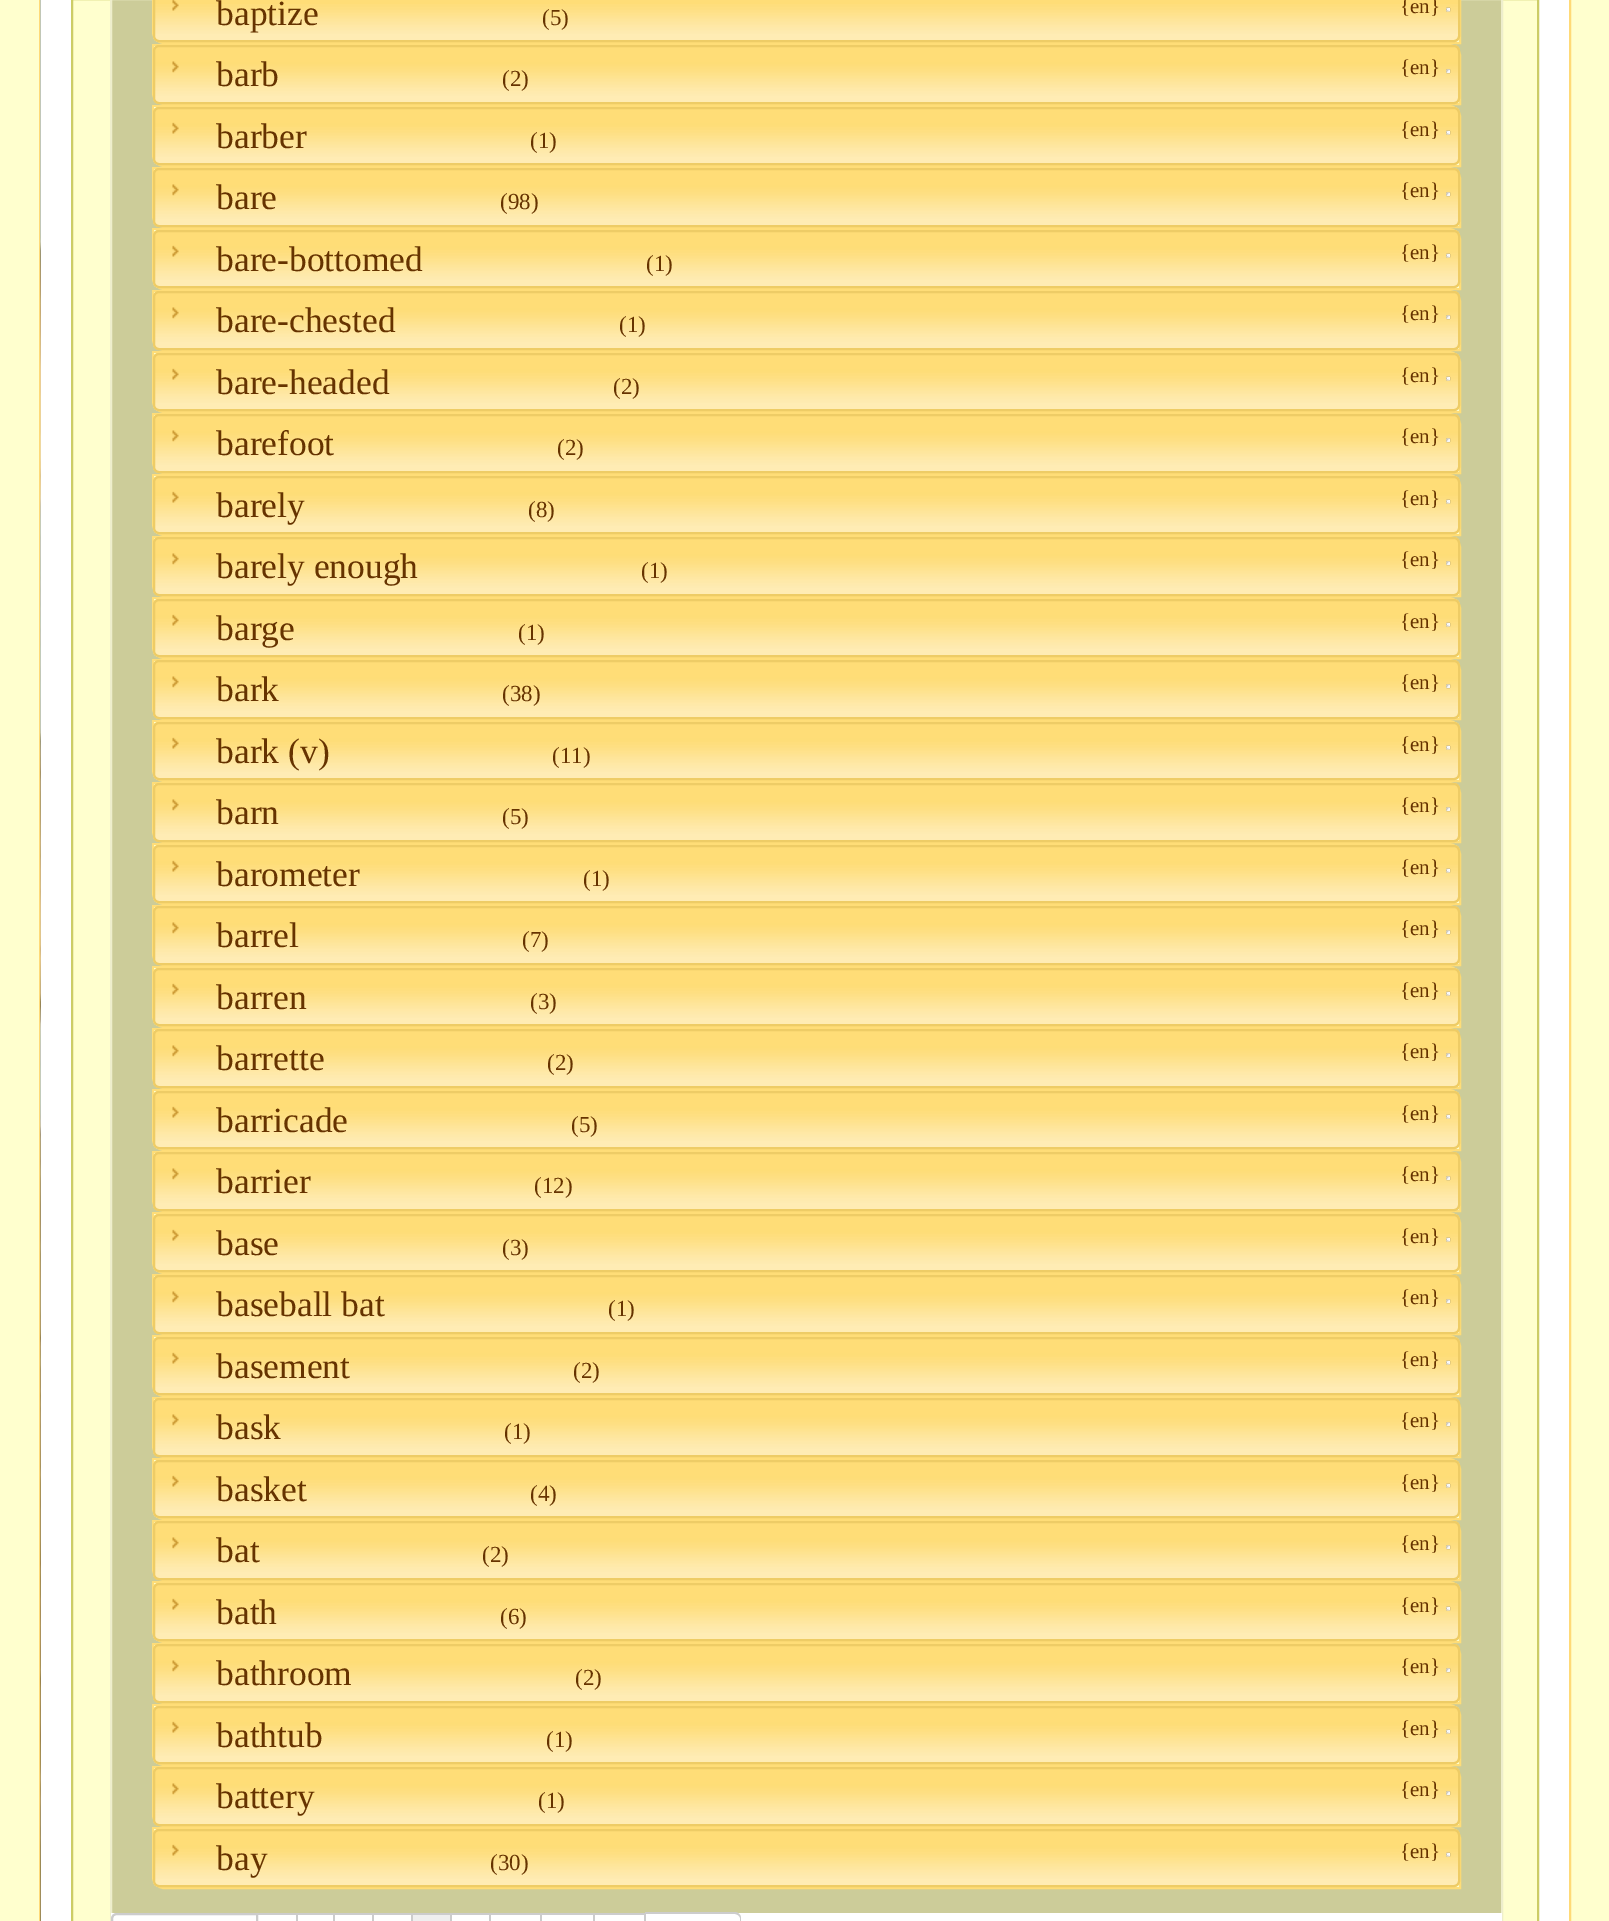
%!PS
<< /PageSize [1609 1921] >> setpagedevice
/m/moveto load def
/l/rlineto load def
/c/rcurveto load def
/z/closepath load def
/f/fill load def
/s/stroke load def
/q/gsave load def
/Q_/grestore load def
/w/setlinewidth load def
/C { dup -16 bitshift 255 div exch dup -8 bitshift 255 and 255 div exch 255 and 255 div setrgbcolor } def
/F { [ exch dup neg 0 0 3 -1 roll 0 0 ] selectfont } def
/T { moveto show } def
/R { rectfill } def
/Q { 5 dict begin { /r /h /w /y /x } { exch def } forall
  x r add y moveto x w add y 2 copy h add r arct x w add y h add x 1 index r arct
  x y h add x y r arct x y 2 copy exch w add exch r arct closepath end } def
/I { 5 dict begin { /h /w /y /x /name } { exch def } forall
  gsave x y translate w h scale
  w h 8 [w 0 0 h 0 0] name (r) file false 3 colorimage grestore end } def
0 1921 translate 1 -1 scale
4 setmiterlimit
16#FFFFCE C
0 0 1609 1921 R
16#FFDA77 C
2 w
40 -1 1530 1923 rectstroke
(1.rgb) 40 0 1 1921 I
16#FFFFFF C
41 0 1528 1921 R
16#FFFFCE C
72 -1 m 1466 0 l 0 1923 l -1466 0 l z q f Q_
16#CCCC66 C
s
16#CCCC99 C
112 0 1389 1913 R
16#EEEECC C
111 -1 1391 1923 rectstroke
16#FFFFCC C
153 -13 m 1296 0 l 6 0 11 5 11 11 c 0 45 l -1296 0 l -6 0 -11 -5 -11 -11 c z q f Q_
16#FFDD77 C
s
153 -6 1307 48 6 Q f
(2.rgb) 153 4 1307 38 I
16#EECC66 C
154 -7 1305 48 5 Q s
(3.rgb) 172 0 7 11 I
/LiberationSerif-Regular 35.5 F
16#663300 C
(baptize) 216 25 T
/LiberationSerif-Regular 23 F
(\(5\)) 542 25 T
/LiberationSerif-Regular 21 F
({en}) 1400 13 T
(4.rgb) 1446 7 5 5 I
16#FFFFCC C
153 45 m 1296 0 l 6 0 11 5 11 11 c 0 48 l -1296 0 l -6 0 -11 -5 -11 -11 c z q f Q_
16#FFDD77 C
s
(5.rgb) 153 45 1307 59 I
16#EECC66 C
154 46 1305 57 5 Q s
(6.rgb) 172 61 7 12 I
/LiberationSerif-Regular 35.5 F
16#663300 C
(barb) 216 86 T
/LiberationSerif-Regular 23 F
(\(2\)) 502 86 T
/LiberationSerif-Regular 21 F
({en}) 1400 74 T
(7.rgb) 1446 69 5 5 I
16#FFFFCC C
153 106 m 1296 0 l 6 0 11 5 11 11 c 0 49 l -1296 0 l -6 0 -11 -5 -11 -11 c z q f Q_
16#FFDD77 C
s
(8.rgb) 153 107 1307 58 I
16#EECC66 C
154 108 1305 56 5 Q s
(9.rgb) 172 122 7 12 I
/LiberationSerif-Regular 35.5 F
16#663300 C
(barber) 216 148 T
/LiberationSerif-Regular 23 F
(\(1\)) 530 148 T
/LiberationSerif-Regular 21 F
({en}) 1400 136 T
(4.rgb) 1446 130 5 5 I
16#FFFFCC C
153 168 m 1296 0 l 6 0 11 5 11 11 c 0 48 l -1296 0 l -6 0 -11 -5 -11 -11 c z q f Q_
16#FFDD77 C
s
(5.rgb) 153 168 1307 59 I
16#EECC66 C
154 169 1305 57 5 Q s
(6.rgb) 172 184 7 12 I
/LiberationSerif-Regular 35.5 F
16#663300 C
(bare) 216 209 T
/LiberationSerif-Regular 23 F
(\(98\)) 500 209 T
/LiberationSerif-Regular 21 F
({en}) 1400 197 T
(7.rgb) 1446 192 5 5 I
16#FFFFCC C
153 229 m 1296 0 l 6 0 11 5 11 11 c 0 49 l -1296 0 l -6 0 -11 -5 -11 -11 c z q f Q_
16#FFDD77 C
s
(8.rgb) 153 230 1307 58 I
16#EECC66 C
154 231 1305 56 5 Q s
(9.rgb) 172 245 7 12 I
/LiberationSerif-Regular 35.5 F
16#663300 C
(bare-bottomed) 216 271 T
/LiberationSerif-Regular 23 F
(\(1\)) 646 271 T
/LiberationSerif-Regular 21 F
({en}) 1400 259 T
(4.rgb) 1446 253 5 5 I
16#FFFFCC C
153 291 m 1296 0 l 6 0 11 5 11 11 c 0 48 l -1296 0 l -6 0 -11 -5 -11 -11 c z q f Q_
16#FFDD77 C
s
(5.rgb) 153 291 1307 59 I
16#EECC66 C
154 292 1305 57 5 Q s
(6.rgb) 172 307 7 12 I
/LiberationSerif-Regular 35.5 F
16#663300 C
(bare-chested) 216 332 T
/LiberationSerif-Regular 23 F
(\(1\)) 619 332 T
/LiberationSerif-Regular 21 F
({en}) 1400 320 T
(7.rgb) 1446 315 5 5 I
16#FFFFCC C
153 352 m 1296 0 l 6 0 11 5 11 11 c 0 49 l -1296 0 l -6 0 -11 -5 -11 -11 c z q f Q_
16#FFDD77 C
s
(8.rgb) 153 353 1307 58 I
16#EECC66 C
154 354 1305 56 5 Q s
(9.rgb) 172 368 7 12 I
/LiberationSerif-Regular 35.5 F
16#663300 C
(bare-headed) 216 394 T
/LiberationSerif-Regular 23 F
(\(2\)) 613 394 T
/LiberationSerif-Regular 21 F
({en}) 1400 382 T
(4.rgb) 1446 376 5 5 I
16#FFFFCC C
153 414 m 1296 0 l 6 0 11 5 11 11 c 0 48 l -1296 0 l -6 0 -11 -5 -11 -11 c z q f Q_
16#FFDD77 C
s
(5.rgb) 153 414 1307 59 I
16#EECC66 C
154 415 1305 57 5 Q s
(6.rgb) 172 430 7 12 I
/LiberationSerif-Regular 35.5 F
16#663300 C
(barefoot) 216 455 T
/LiberationSerif-Regular 21 F
({en}) 1400 443 T
(7.rgb) 1446 438 5 5 I
/LiberationSerif-Regular 23 F
(\(2\)) 557 455 T
16#FFFFCC C
153 475 m 1296 0 l 6 0 11 5 11 11 c 0 49 l -1296 0 l -6 0 -11 -5 -11 -11 c z q f Q_
16#FFDD77 C
s
(8.rgb) 153 476 1307 58 I
16#EECC66 C
154 477 1305 56 5 Q s
(9.rgb) 172 491 7 12 I
/LiberationSerif-Regular 35.5 F
16#663300 C
(barely) 216 517 T
/LiberationSerif-Regular 23 F
(\(8\)) 528 517 T
/LiberationSerif-Regular 21 F
({en}) 1400 505 T
(4.rgb) 1446 499 5 5 I
16#FFFFCC C
153 537 m 1296 0 l 6 0 11 5 11 11 c 0 48 l -1296 0 l -6 0 -11 -5 -11 -11 c z q f Q_
16#FFDD77 C
s
(5.rgb) 153 537 1307 59 I
16#EECC66 C
154 538 1305 57 5 Q s
(6.rgb) 172 553 7 12 I
/LiberationSerif-Regular 35.5 F
16#663300 C
(barely enough) 216 578 T
/LiberationSerif-Regular 23 F
(\(1\)) 641 578 T
/LiberationSerif-Regular 21 F
({en}) 1400 566 T
(7.rgb) 1446 561 5 5 I
16#FFFFCC C
153 598 m 1296 0 l 6 0 11 5 11 11 c 0 49 l -1296 0 l -6 0 -11 -5 -11 -11 c z q f Q_
16#FFDD77 C
s
(8.rgb) 153 599 1307 58 I
16#EECC66 C
154 600 1305 56 5 Q s
(9.rgb) 172 614 7 12 I
/LiberationSerif-Regular 35.5 F
16#663300 C
(barge) 216 640 T
/LiberationSerif-Regular 23 F
(\(1\)) 518 640 T
/LiberationSerif-Regular 21 F
({en}) 1400 628 T
(4.rgb) 1446 622 5 5 I
16#FFFFCC C
153 660 m 1296 0 l 6 0 11 5 11 11 c 0 48 l -1296 0 l -6 0 -11 -5 -11 -11 c z q f Q_
16#FFDD77 C
s
(5.rgb) 153 660 1307 59 I
16#EECC66 C
154 661 1305 57 5 Q s
(6.rgb) 172 676 7 12 I
/LiberationSerif-Regular 35.5 F
16#663300 C
(bark) 216 701 T
/LiberationSerif-Regular 23 F
(\(38\)) 502 701 T
/LiberationSerif-Regular 21 F
({en}) 1400 689 T
(7.rgb) 1446 684 5 5 I
16#FFFFCC C
153 721 m 1296 0 l 6 0 11 5 11 11 c 0 49 l -1296 0 l -6 0 -11 -5 -11 -11 c z q f Q_
16#FFDD77 C
s
(8.rgb) 153 722 1307 58 I
16#EECC66 C
154 723 1305 56 5 Q s
(9.rgb) 172 737 7 12 I
/LiberationSerif-Regular 35.5 F
16#663300 C
(bark \(v\)) 216 763 T
/LiberationSerif-Regular 23 F
(\(11\)) 552 763 T
/LiberationSerif-Regular 21 F
({en}) 1400 751 T
(4.rgb) 1446 745 5 5 I
16#FFFFCC C
153 783 m 1296 0 l 6 0 11 5 11 11 c 0 48 l -1296 0 l -6 0 -11 -5 -11 -11 c z q f Q_
16#FFDD77 C
s
(5.rgb) 153 783 1307 59 I
16#EECC66 C
154 784 1305 57 5 Q s
(6.rgb) 172 799 7 12 I
/LiberationSerif-Regular 35.5 F
16#663300 C
(barn) 216 824 T
/LiberationSerif-Regular 23 F
(\(5\)) 502 824 T
/LiberationSerif-Regular 21 F
({en}) 1400 812 T
(7.rgb) 1446 807 5 5 I
16#FFFFCC C
153 844 m 1296 0 l 6 0 11 5 11 11 c 0 49 l -1296 0 l -6 0 -11 -5 -11 -11 c z q f Q_
16#FFDD77 C
s
(8.rgb) 153 845 1307 58 I
16#EECC66 C
154 846 1305 56 5 Q s
(9.rgb) 172 860 7 12 I
/LiberationSerif-Regular 35.5 F
16#663300 C
(barometer) 216 886 T
/LiberationSerif-Regular 23 F
(\(1\)) 583 886 T
/LiberationSerif-Regular 21 F
({en}) 1400 874 T
(4.rgb) 1446 868 5 5 I
16#FFFFCC C
153 906 m 1296 0 l 6 0 11 5 11 11 c 0 48 l -1296 0 l -6 0 -11 -5 -11 -11 c z q f Q_
16#FFDD77 C
s
(5.rgb) 153 906 1307 59 I
16#EECC66 C
154 907 1305 57 5 Q s
(6.rgb) 172 922 7 12 I
/LiberationSerif-Regular 35.5 F
16#663300 C
(barrel) 216 947 T
/LiberationSerif-Regular 23 F
(\(7\)) 522 947 T
/LiberationSerif-Regular 21 F
({en}) 1400 935 T
(7.rgb) 1446 930 5 5 I
16#FFFFCC C
153 967 m 1296 0 l 6 0 11 5 11 11 c 0 49 l -1296 0 l -6 0 -11 -5 -11 -11 c z q f Q_
16#FFDD77 C
s
(8.rgb) 153 968 1307 58 I
16#EECC66 C
154 969 1305 56 5 Q s
(9.rgb) 172 983 7 12 I
/LiberationSerif-Regular 35.5 F
16#663300 C
(barren) 216 1009 T
/LiberationSerif-Regular 23 F
(\(3\)) 530 1009 T
/LiberationSerif-Regular 21 F
({en}) 1400 997 T
(4.rgb) 1446 991 5 5 I
16#FFFFCC C
153 1029 m 1296 0 l 6 0 11 5 11 11 c 0 48 l -1296 0 l -6 0 -11 -5 -11 -11 c z q f Q_
16#FFDD77 C
s
(5.rgb) 153 1029 1307 59 I
16#EECC66 C
154 1030 1305 57 5 Q s
(6.rgb) 172 1045 7 12 I
/LiberationSerif-Regular 35.5 F
16#663300 C
(barrette) 216 1070 T
/LiberationSerif-Regular 23 F
(\(2\)) 547 1070 T
/LiberationSerif-Regular 21 F
({en}) 1400 1058 T
(7.rgb) 1446 1053 5 5 I
16#FFFFCC C
153 1090 m 1296 0 l 6 0 11 5 11 11 c 0 49 l -1296 0 l -6 0 -11 -5 -11 -11 c z q f Q_
16#FFDD77 C
s
(10.rgb) 153 1091 1307 58 I
16#EECC66 C
154 1092 1305 56 5 Q s
(9.rgb) 172 1106 7 12 I
/LiberationSerif-Regular 35.5 F
16#663300 C
(barricade) 216 1132 T
/LiberationSerif-Regular 23 F
(\(5\)) 571 1132 T
/LiberationSerif-Regular 21 F
({en}) 1400 1120 T
(4.rgb) 1446 1114 5 5 I
16#FFFFCC C
153 1152 m 1296 0 l 6 0 11 5 11 11 c 0 48 l -1296 0 l -6 0 -11 -5 -11 -11 c z q f Q_
16#FFDD77 C
s
(5.rgb) 153 1152 1307 59 I
16#EECC66 C
154 1153 1305 57 5 Q s
(6.rgb) 172 1168 7 12 I
/LiberationSerif-Regular 35.5 F
16#663300 C
(barrier) 216 1193 T
/LiberationSerif-Regular 23 F
(\(12\)) 534 1193 T
/LiberationSerif-Regular 21 F
({en}) 1400 1181 T
(7.rgb) 1446 1176 5 5 I
16#FFFFCC C
153 1213 m 1296 0 l 6 0 11 5 11 11 c 0 49 l -1296 0 l -6 0 -11 -5 -11 -11 c z q f Q_
16#FFDD77 C
s
(8.rgb) 153 1214 1307 58 I
16#EECC66 C
154 1215 1305 56 5 Q s
(9.rgb) 172 1229 7 12 I
/LiberationSerif-Regular 35.5 F
16#663300 C
(base) 216 1255 T
/LiberationSerif-Regular 23 F
(\(3\)) 502 1255 T
/LiberationSerif-Regular 21 F
({en}) 1400 1243 T
(4.rgb) 1446 1237 5 5 I
16#FFFFCC C
153 1275 m 1296 0 l 6 0 11 5 11 11 c 0 48 l -1296 0 l -6 0 -11 -5 -11 -11 c z q f Q_
16#FFDD77 C
s
(5.rgb) 153 1275 1307 59 I
16#EECC66 C
154 1276 1305 57 5 Q s
(6.rgb) 172 1291 7 12 I
/LiberationSerif-Regular 35.5 F
16#663300 C
(baseball bat) 216 1316 T
/LiberationSerif-Regular 23 F
(\(1\)) 608 1316 T
/LiberationSerif-Regular 21 F
({en}) 1400 1304 T
(7.rgb) 1446 1299 5 5 I
16#FFFFCC C
153 1336 m 1296 0 l 6 0 11 5 11 11 c 0 49 l -1296 0 l -6 0 -11 -5 -11 -11 c z q f Q_
16#FFDD77 C
s
(8.rgb) 153 1337 1307 58 I
16#EECC66 C
154 1338 1305 56 5 Q s
(9.rgb) 172 1352 7 12 I
/LiberationSerif-Regular 35.5 F
16#663300 C
(basement) 216 1378 T
/LiberationSerif-Regular 23 F
(\(2\)) 573 1378 T
/LiberationSerif-Regular 21 F
({en}) 1400 1366 T
(4.rgb) 1446 1360 5 5 I
16#FFFFCC C
153 1398 m 1296 0 l 6 0 11 5 11 11 c 0 48 l -1296 0 l -6 0 -11 -5 -11 -11 c z q f Q_
16#FFDD77 C
s
(11.rgb) 153 1398 1307 59 I
16#EECC66 C
154 1399 1305 57 5 Q s
(6.rgb) 172 1414 7 12 I
/LiberationSerif-Regular 35.5 F
16#663300 C
(bask) 216 1439 T
/LiberationSerif-Regular 23 F
(\(1\)) 504 1439 T
/LiberationSerif-Regular 21 F
({en}) 1400 1427 T
(7.rgb) 1446 1422 5 5 I
16#FFFFCC C
153 1459 m 1296 0 l 6 0 11 5 11 11 c 0 49 l -1296 0 l -6 0 -11 -5 -11 -11 c z q f Q_
16#FFDD77 C
s
(8.rgb) 153 1460 1307 58 I
16#EECC66 C
154 1461 1305 56 5 Q s
(9.rgb) 172 1475 7 12 I
/LiberationSerif-Regular 35.5 F
16#663300 C
(basket) 216 1501 T
/LiberationSerif-Regular 23 F
(\(4\)) 530 1501 T
/LiberationSerif-Regular 21 F
({en}) 1400 1489 T
(4.rgb) 1446 1483 5 5 I
16#FFFFCC C
153 1521 m 1296 0 l 6 0 11 5 11 11 c 0 48 l -1296 0 l -6 0 -11 -5 -11 -11 c z q f Q_
16#FFDD77 C
s
(5.rgb) 153 1521 1307 59 I
16#EECC66 C
154 1522 1305 57 5 Q s
(6.rgb) 172 1537 7 12 I
/LiberationSerif-Regular 35.5 F
16#663300 C
(bat) 216 1562 T
/LiberationSerif-Regular 23 F
(\(2\)) 482 1562 T
/LiberationSerif-Regular 21 F
({en}) 1400 1550 T
(7.rgb) 1446 1545 5 5 I
16#FFFFCC C
153 1582 m 1296 0 l 6 0 11 5 11 11 c 0 49 l -1296 0 l -6 0 -11 -5 -11 -11 c z q f Q_
16#FFDD77 C
s
(8.rgb) 153 1583 1307 58 I
16#EECC66 C
154 1584 1305 56 5 Q s
(9.rgb) 172 1598 7 12 I
/LiberationSerif-Regular 35.5 F
16#663300 C
(bath) 216 1624 T
/LiberationSerif-Regular 23 F
(\(6\)) 500 1624 T
/LiberationSerif-Regular 21 F
({en}) 1400 1612 T
(4.rgb) 1446 1606 5 5 I
16#FFFFCC C
153 1644 m 1296 0 l 6 0 11 5 11 11 c 0 48 l -1296 0 l -6 0 -11 -5 -11 -11 c z q f Q_
16#FFDD77 C
s
(5.rgb) 153 1644 1307 59 I
16#EECC66 C
154 1645 1305 57 5 Q s
(6.rgb) 172 1660 7 12 I
/LiberationSerif-Regular 35.5 F
16#663300 C
(bathroom) 216 1685 T
/LiberationSerif-Regular 23 F
(\(2\)) 575 1685 T
/LiberationSerif-Regular 21 F
({en}) 1400 1673 T
(7.rgb) 1446 1668 5 5 I
16#FFFFCC C
153 1705 m 1296 0 l 6 0 11 5 11 11 c 0 49 l -1296 0 l -6 0 -11 -5 -11 -11 c z q f Q_
16#FFDD77 C
s
(8.rgb) 153 1706 1307 58 I
16#EECC66 C
154 1707 1305 56 5 Q s
(9.rgb) 172 1721 7 12 I
/LiberationSerif-Regular 35.5 F
16#663300 C
(bathtub) 216 1747 T
/LiberationSerif-Regular 23 F
(\(1\)) 546 1747 T
/LiberationSerif-Regular 21 F
({en}) 1400 1735 T
(4.rgb) 1446 1729 5 5 I
16#FFFFCC C
153 1767 m 1296 0 l 6 0 11 5 11 11 c 0 48 l -1296 0 l -6 0 -11 -5 -11 -11 c z q f Q_
16#FFDD77 C
s
(5.rgb) 153 1767 1307 59 I
16#EECC66 C
154 1768 1305 57 5 Q s
(6.rgb) 172 1783 7 12 I
/LiberationSerif-Regular 35.5 F
16#663300 C
(battery) 216 1808 T
/LiberationSerif-Regular 23 F
(\(1\)) 538 1808 T
/LiberationSerif-Regular 21 F
({en}) 1400 1796 T
(7.rgb) 1446 1791 5 5 I
16#FFFFCC C
153 1828 m 1296 0 l 6 0 11 5 11 11 c 0 49 l -1296 0 l -6 0 -11 -5 -11 -11 c z q f Q_
16#FFDD77 C
s
(8.rgb) 153 1829 1307 58 I
16#EECC66 C
154 1830 1305 56 5 Q s
(9.rgb) 172 1844 7 12 I
/LiberationSerif-Regular 35.5 F
16#663300 C
(bay) 216 1870 T
/LiberationSerif-Regular 23 F
(\(30\)) 490 1870 T
/LiberationSerif-Regular 21 F
({en}) 1400 1858 T
(4.rgb) 1446 1852 5 5 I
16#FFFFFF C
111 1913 1391 8 R
16#CCCCCC C
117 1914 m 140 0 l 0 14 l -140 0 l -3 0 -5 -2 -5 -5 c 0 -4 l 0 -3 2 -5 5 -5 c z s
258 1913 39 2 R
296 1913 2 8 R
297 1913 297 2 R
333 1913 2 8 R
593 1913 2 8 R
594 1913 51 2 R
644 1913 2 8 R
645 1912 m 90 0 l 3 0 6 3 6 6 c 0 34 l 0 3 -3 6 -6 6 c -90 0 l z 645 1914 m 90 0 l 2 0 5 2 5 4 c 0 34 l 0 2 -3 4 -5 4 c -90 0 l z eofill
372 1913 2 8 R
411 1913 2 8 R
16#EFEFEF C
413 1915 39 6 R
16#CCCCCC C
450 1913 2 8 R
489 1913 2 8 R
540 1913 2 8 R
showpage
